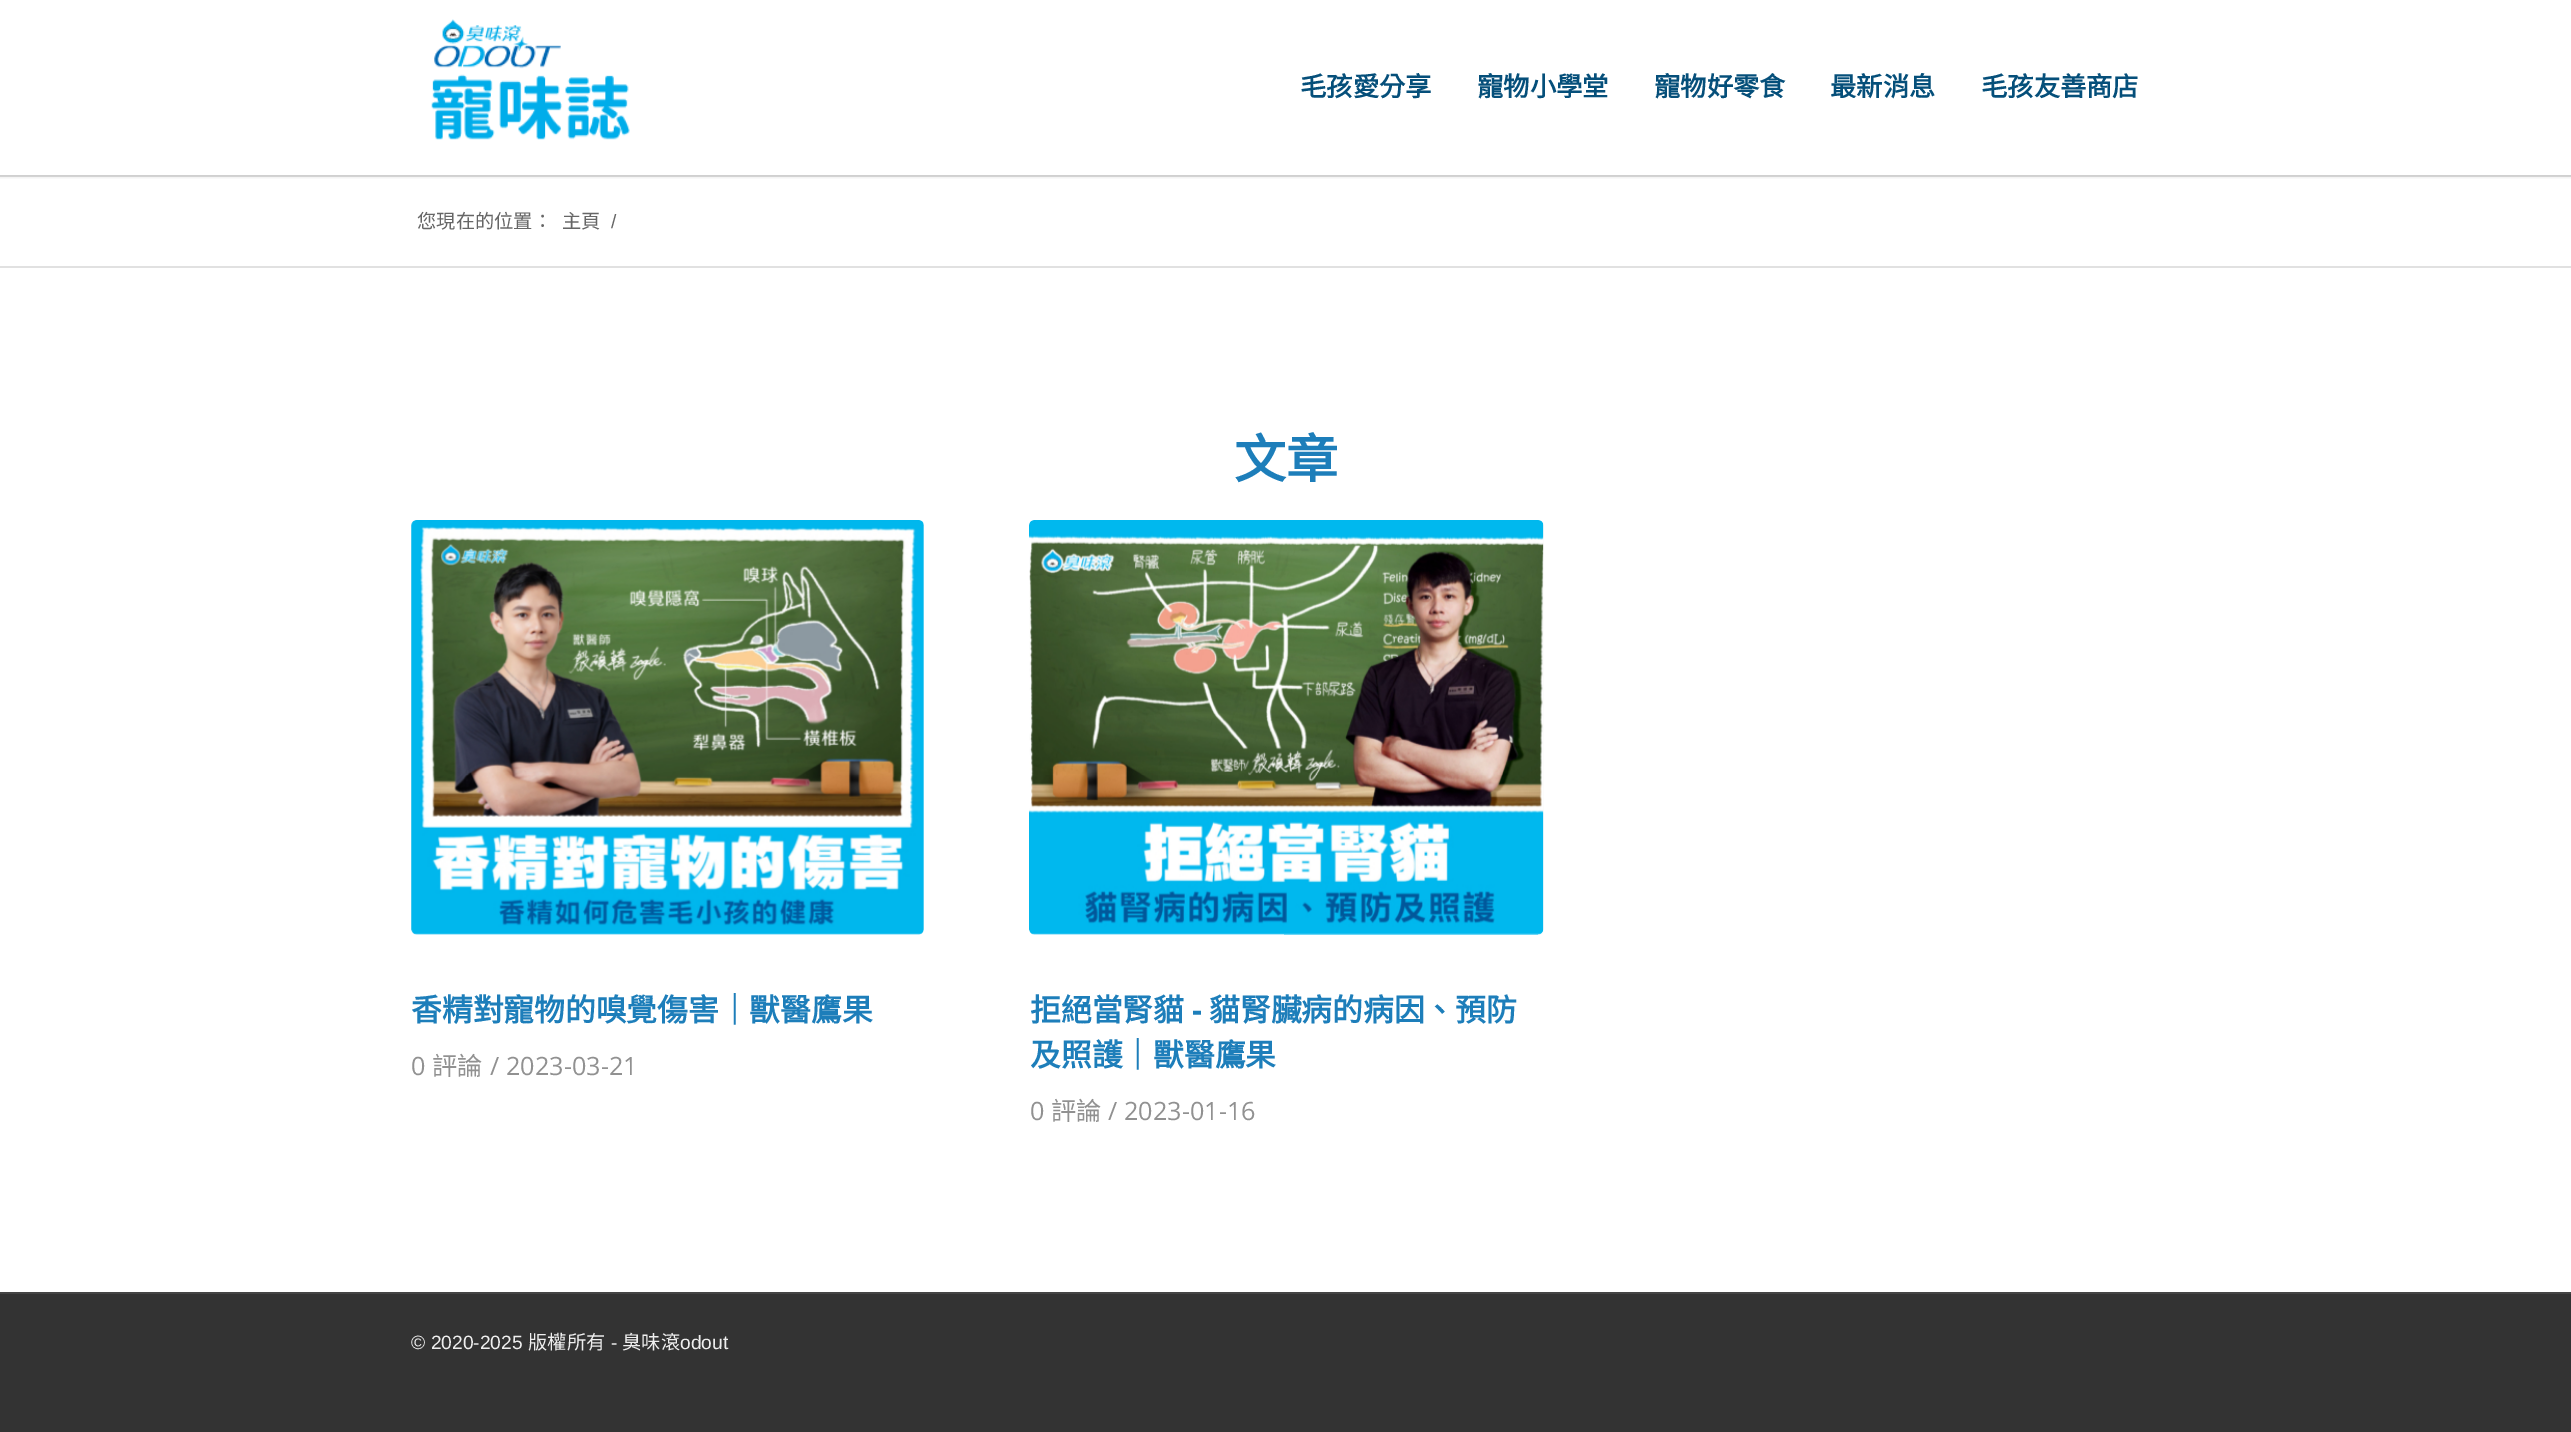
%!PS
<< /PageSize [2571 1432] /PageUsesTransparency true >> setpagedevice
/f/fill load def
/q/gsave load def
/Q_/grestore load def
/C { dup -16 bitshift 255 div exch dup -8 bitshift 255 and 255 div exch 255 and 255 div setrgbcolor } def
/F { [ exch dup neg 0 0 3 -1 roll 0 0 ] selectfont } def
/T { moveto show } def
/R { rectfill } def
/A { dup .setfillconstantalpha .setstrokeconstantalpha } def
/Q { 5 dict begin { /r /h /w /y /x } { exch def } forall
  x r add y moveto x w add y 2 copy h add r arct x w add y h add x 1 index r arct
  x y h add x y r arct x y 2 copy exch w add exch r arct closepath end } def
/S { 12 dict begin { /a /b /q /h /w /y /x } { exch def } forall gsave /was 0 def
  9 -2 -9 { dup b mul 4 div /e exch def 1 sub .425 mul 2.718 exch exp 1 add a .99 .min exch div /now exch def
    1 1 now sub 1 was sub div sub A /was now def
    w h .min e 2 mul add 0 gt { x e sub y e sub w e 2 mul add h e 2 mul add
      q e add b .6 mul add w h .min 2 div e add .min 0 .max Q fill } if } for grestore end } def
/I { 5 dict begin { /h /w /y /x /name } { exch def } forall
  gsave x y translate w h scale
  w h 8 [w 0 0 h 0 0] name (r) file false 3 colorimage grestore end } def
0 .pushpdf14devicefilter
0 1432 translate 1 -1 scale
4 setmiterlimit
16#333333 C
0 0 2571 1432 R
16#FFFFFF C
0 0 2571 1292 R
16#E1E1E1 C
0 175 2571 2 R
q
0 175 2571 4 rectclip
16#000000 C
-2 -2 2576 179 0 2 .1 S
Q_
(1.rgb) 431 19 199 121 I
/NotoSansCJKTC-Bold 26.25 F
16#054F7A C
(毛孩愛分享) 1300 96 T
(寵物小學堂) 1477 96 T
(寵物好零食) 1654 96 T
(最新消息) 1830 96 T
(毛孩友善商店) 1981 96 T
/NotoSansCJKTC-Regular 19.25 F
16#666666 C
(您現在的位置：) 417 228 T
(主頁) 562 228 T
/LiberationSans-Regular 19.25 F
(/) 611 228 T
16#E1E1E1 C
0 266 2571 2 R
/NotoSansCJKTC-Bold 52 F
16#1D7EBA C
(文章) 1234 478 T
16#FCFCFC C
411 520 513 415 5 Q f
(2.rgb) 411 520 513 415 I
/NotoSansCJKTC-Bold 30.75 F
16#1D7EBA C
(香精對寵物的嗅覺傷害｜獸醫鷹果) 411 1021 T
/OpenSans-Regular 25.25 F
16#919191 C
(0) 411 1075 T
/NotoSansCJKTC-Regular 25.25 F
(評論) 432 1075 T
/OpenSans-Regular 25.25 F
(/) 490 1075 T
(2023-03-21) 506 1075 T
16#FCFCFC C
1029 520 515 415 5 Q f
(3.rgb) 1029 520 515 415 I
/NotoSansCJKTC-Bold 30.75 F
16#1D7EBA C
(拒絕當腎貓) 1030 1021 T
/OpenSans-Bold 30.75 F
(-) 1192 1021 T
/NotoSansCJKTC-Bold 30.75 F
(貓腎臟病的病因、預防) 1209 1021 T
(及照護｜獸醫鷹果) 1030 1066 T
/OpenSans-Regular 25.25 F
16#919191 C
(0) 1030 1120 T
/NotoSansCJKTC-Regular 25.25 F
(評論) 1051 1120 T
/OpenSans-Regular 25.25 F
(/) 1108 1120 T
(2023-01-16) 1124 1120 T
16#444444 C
0 1292 2571 2 R
/LiberationSans-Regular 19.25 F
16#EEEEEE C
(© 2020-2025) 411 1349 T
/NotoSansCJKTC-Regular 19.25 F
(版權所有) 528 1349 T
/LiberationSans-Regular 19.25 F
(-) 611 1349 T
/NotoSansCJKTC-Regular 19.25 F
(臭味滾) 622 1349 T
/LiberationSans-Regular 19.25 F
(odout) 680 1349 T
.poppdf14devicefilter showpage
